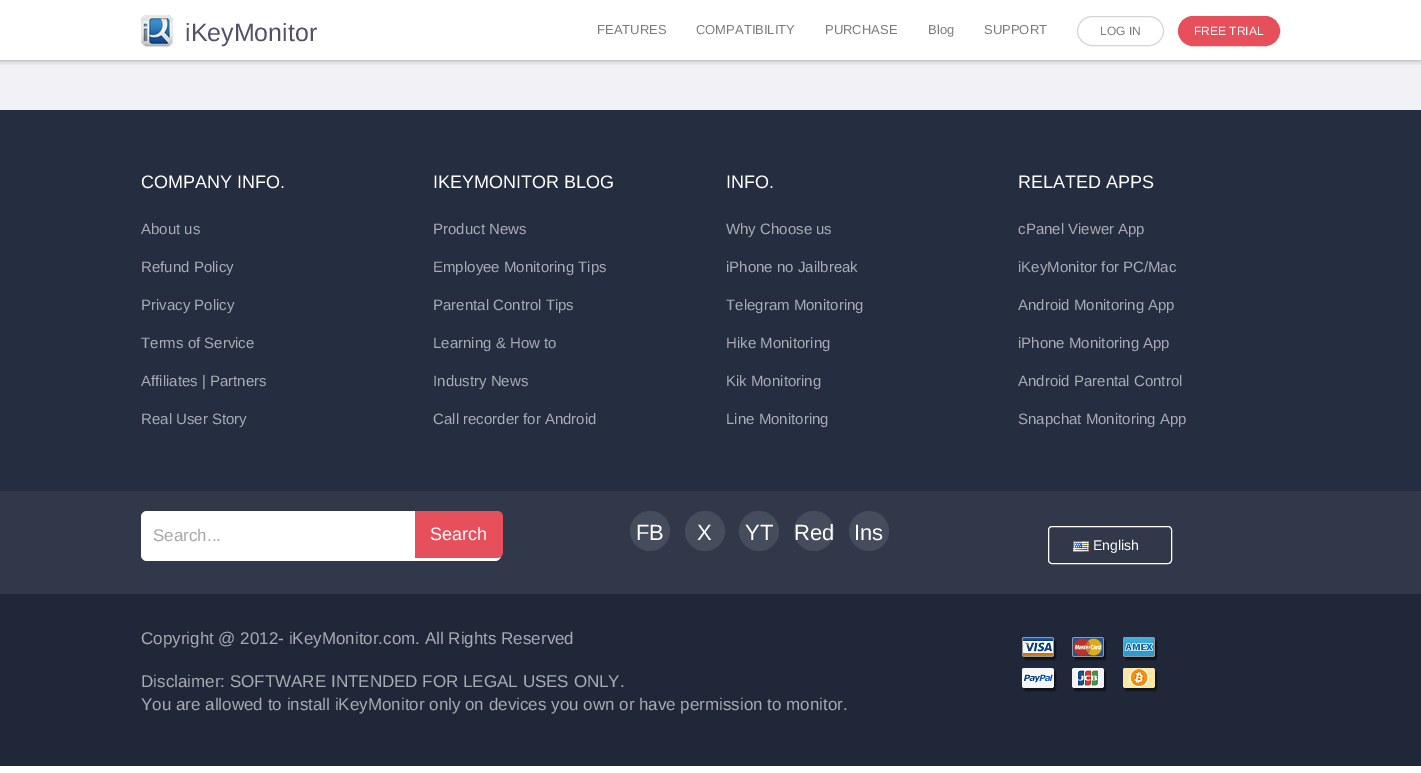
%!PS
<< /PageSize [1421 773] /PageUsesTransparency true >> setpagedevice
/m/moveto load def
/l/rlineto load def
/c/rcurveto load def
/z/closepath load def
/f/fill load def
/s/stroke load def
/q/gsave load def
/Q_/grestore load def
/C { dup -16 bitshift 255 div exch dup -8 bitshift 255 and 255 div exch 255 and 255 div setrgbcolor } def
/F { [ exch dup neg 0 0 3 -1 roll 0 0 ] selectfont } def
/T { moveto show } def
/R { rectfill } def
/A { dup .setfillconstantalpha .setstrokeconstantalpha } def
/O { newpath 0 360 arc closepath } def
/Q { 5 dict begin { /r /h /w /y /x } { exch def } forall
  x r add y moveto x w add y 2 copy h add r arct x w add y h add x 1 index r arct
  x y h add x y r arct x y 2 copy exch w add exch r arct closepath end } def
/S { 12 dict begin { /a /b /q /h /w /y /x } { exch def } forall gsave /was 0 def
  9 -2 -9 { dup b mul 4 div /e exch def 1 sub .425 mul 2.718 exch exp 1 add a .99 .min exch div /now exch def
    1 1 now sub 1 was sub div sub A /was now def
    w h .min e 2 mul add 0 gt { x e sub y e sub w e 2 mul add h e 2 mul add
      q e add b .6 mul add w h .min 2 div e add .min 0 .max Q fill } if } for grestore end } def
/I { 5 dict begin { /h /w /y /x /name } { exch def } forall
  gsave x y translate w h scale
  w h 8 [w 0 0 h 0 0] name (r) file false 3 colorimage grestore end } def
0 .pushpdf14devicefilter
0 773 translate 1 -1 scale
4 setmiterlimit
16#FFFFFF C
0 0 1421 773 R
16#F2F2F6 C
0 60 1421 50 R
q
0 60 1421 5 rectclip
16#000000 C
0 0 1421 60 0 3 .4 S
Q_
(1.rgb) 141 15 32 32 I
/LiberationSans-Regular 25 F
16#525168 C
(iKeyMonitor) 185 41 T
/LiberationSans-Regular 13 F
16#7B7B7B C
(FEATURES) 597 34 T
(COMPATIBILITY) 696 34 T
(PURCHASE) 825 34 T
(Blog) 928 34 T
(SUPPORT) 984 34 T
16#D5D5D5 C
1077.5 16.5 86 29 14.5 Q s
/LiberationSans-Regular 12 F
16#7B7B7B C
(LOG IN) 1100 35 T
16#E7505A C
1178.5 16.5 101 29 14.5 Q q f Q_
s
16#FFFFFF C
(FREE TRIAL) 1194 35 T
16#252D40 C
0 110 1421 381 R
/LiberationSans-Regular 18 F
16#FFFFFF C
(COMPANY INFO.) 141 188 T
/LiberationSans-Regular 15 F
16#A8ABB3 C
(About us) 141 234 T
(Refund Policy) 141 272 T
(Privacy Policy) 141 310 T
(Terms of Service) 141 348 T
(Affiliates | Partners) 141 386 T
(Real User Story) 141 424 T
/LiberationSans-Regular 18 F
16#FFFFFF C
(IKEYMONITOR BLOG) 433 188 T
/LiberationSans-Regular 15 F
16#A8ABB3 C
(Product News) 433 234 T
(Employee Monitoring Tips) 433 272 T
(Parental Control Tips) 433 310 T
(Learning & How to) 433 348 T
(Industry News) 433 386 T
(Call recorder for Android) 433 424 T
/LiberationSans-Regular 18 F
16#FFFFFF C
(INFO.) 726 188 T
/LiberationSans-Regular 15 F
16#A8ABB3 C
(Why Choose us) 726 234 T
(iPhone no Jailbreak) 726 272 T
(Telegram Monitoring) 726 310 T
(Hike Monitoring) 726 348 T
(Kik Monitoring) 726 386 T
(Line Monitoring) 726 424 T
/LiberationSans-Regular 18 F
16#FFFFFF C
(RELATED APPS) 1018 188 T
/LiberationSans-Regular 15 F
16#A8ABB3 C
(cPanel Viewer App) 1018 234 T
(iKeyMonitor for PC/Mac) 1018 272 T
(Android Monitoring App) 1018 310 T
(iPhone Monitoring App) 1018 348 T
(Android Parental Control) 1018 386 T
(Snapchat Monitoring App) 1018 424 T
16#30384A C
0 491 1421 103 R
16#FFFFFF C
141 511 360 50 6 Q f
/LiberationSans-Regular 17 F
16#A6A6A6 C
(Search...) 153 541 T
16#E7505A C
415 511 m 82 0 l 3.5 0 6 2.5 6 6 c 0 35 l 0 3.5 -2.5 6 -6 6 c -82 0 l z f
/LiberationSans-Regular 18 F
16#FFFFFF C
(Search) 430 540 T
16#454C5C C
650 531 20 O f
/LiberationSans-Regular 22 F
16#FFFFFF C
(FB) 636 540 T
16#454C5C C
705 531 20 O f
16#FFFFFF C
(X) 697 540 T
16#454C5C C
759 531 20 O f
16#FFFFFF C
(YT) 745 540 T
16#454C5C C
814 531 20 O f
16#FFFFFF C
(Red) 794 540 T
16#454C5C C
869 531 20 O f
16#FFFFFF C
(Ins) 854 540 T
1048.5 526.5 123 37 3.5 Q s
(2.rgb) 1073 541 16 11 I
/LiberationSans-Regular 14 F
(English) 1093 550 T
16#1F2738 C
0 594 1421 172 R
/LiberationSans-Regular 17 F
16#A8ABB3 C
(Copyright @ 2012- iKeyMonitor.com. All Rights Reserved) 141 644 T
(Disclaimer: SOFTWARE INTENDED FOR LEGAL USES ONLY.) 141 687 T
(You are allowed to install iKeyMonitor only on devices you own or have permission to monitor.) 141 710 T
(3.rgb) 1022 637 136 55 I
.poppdf14devicefilter showpage
